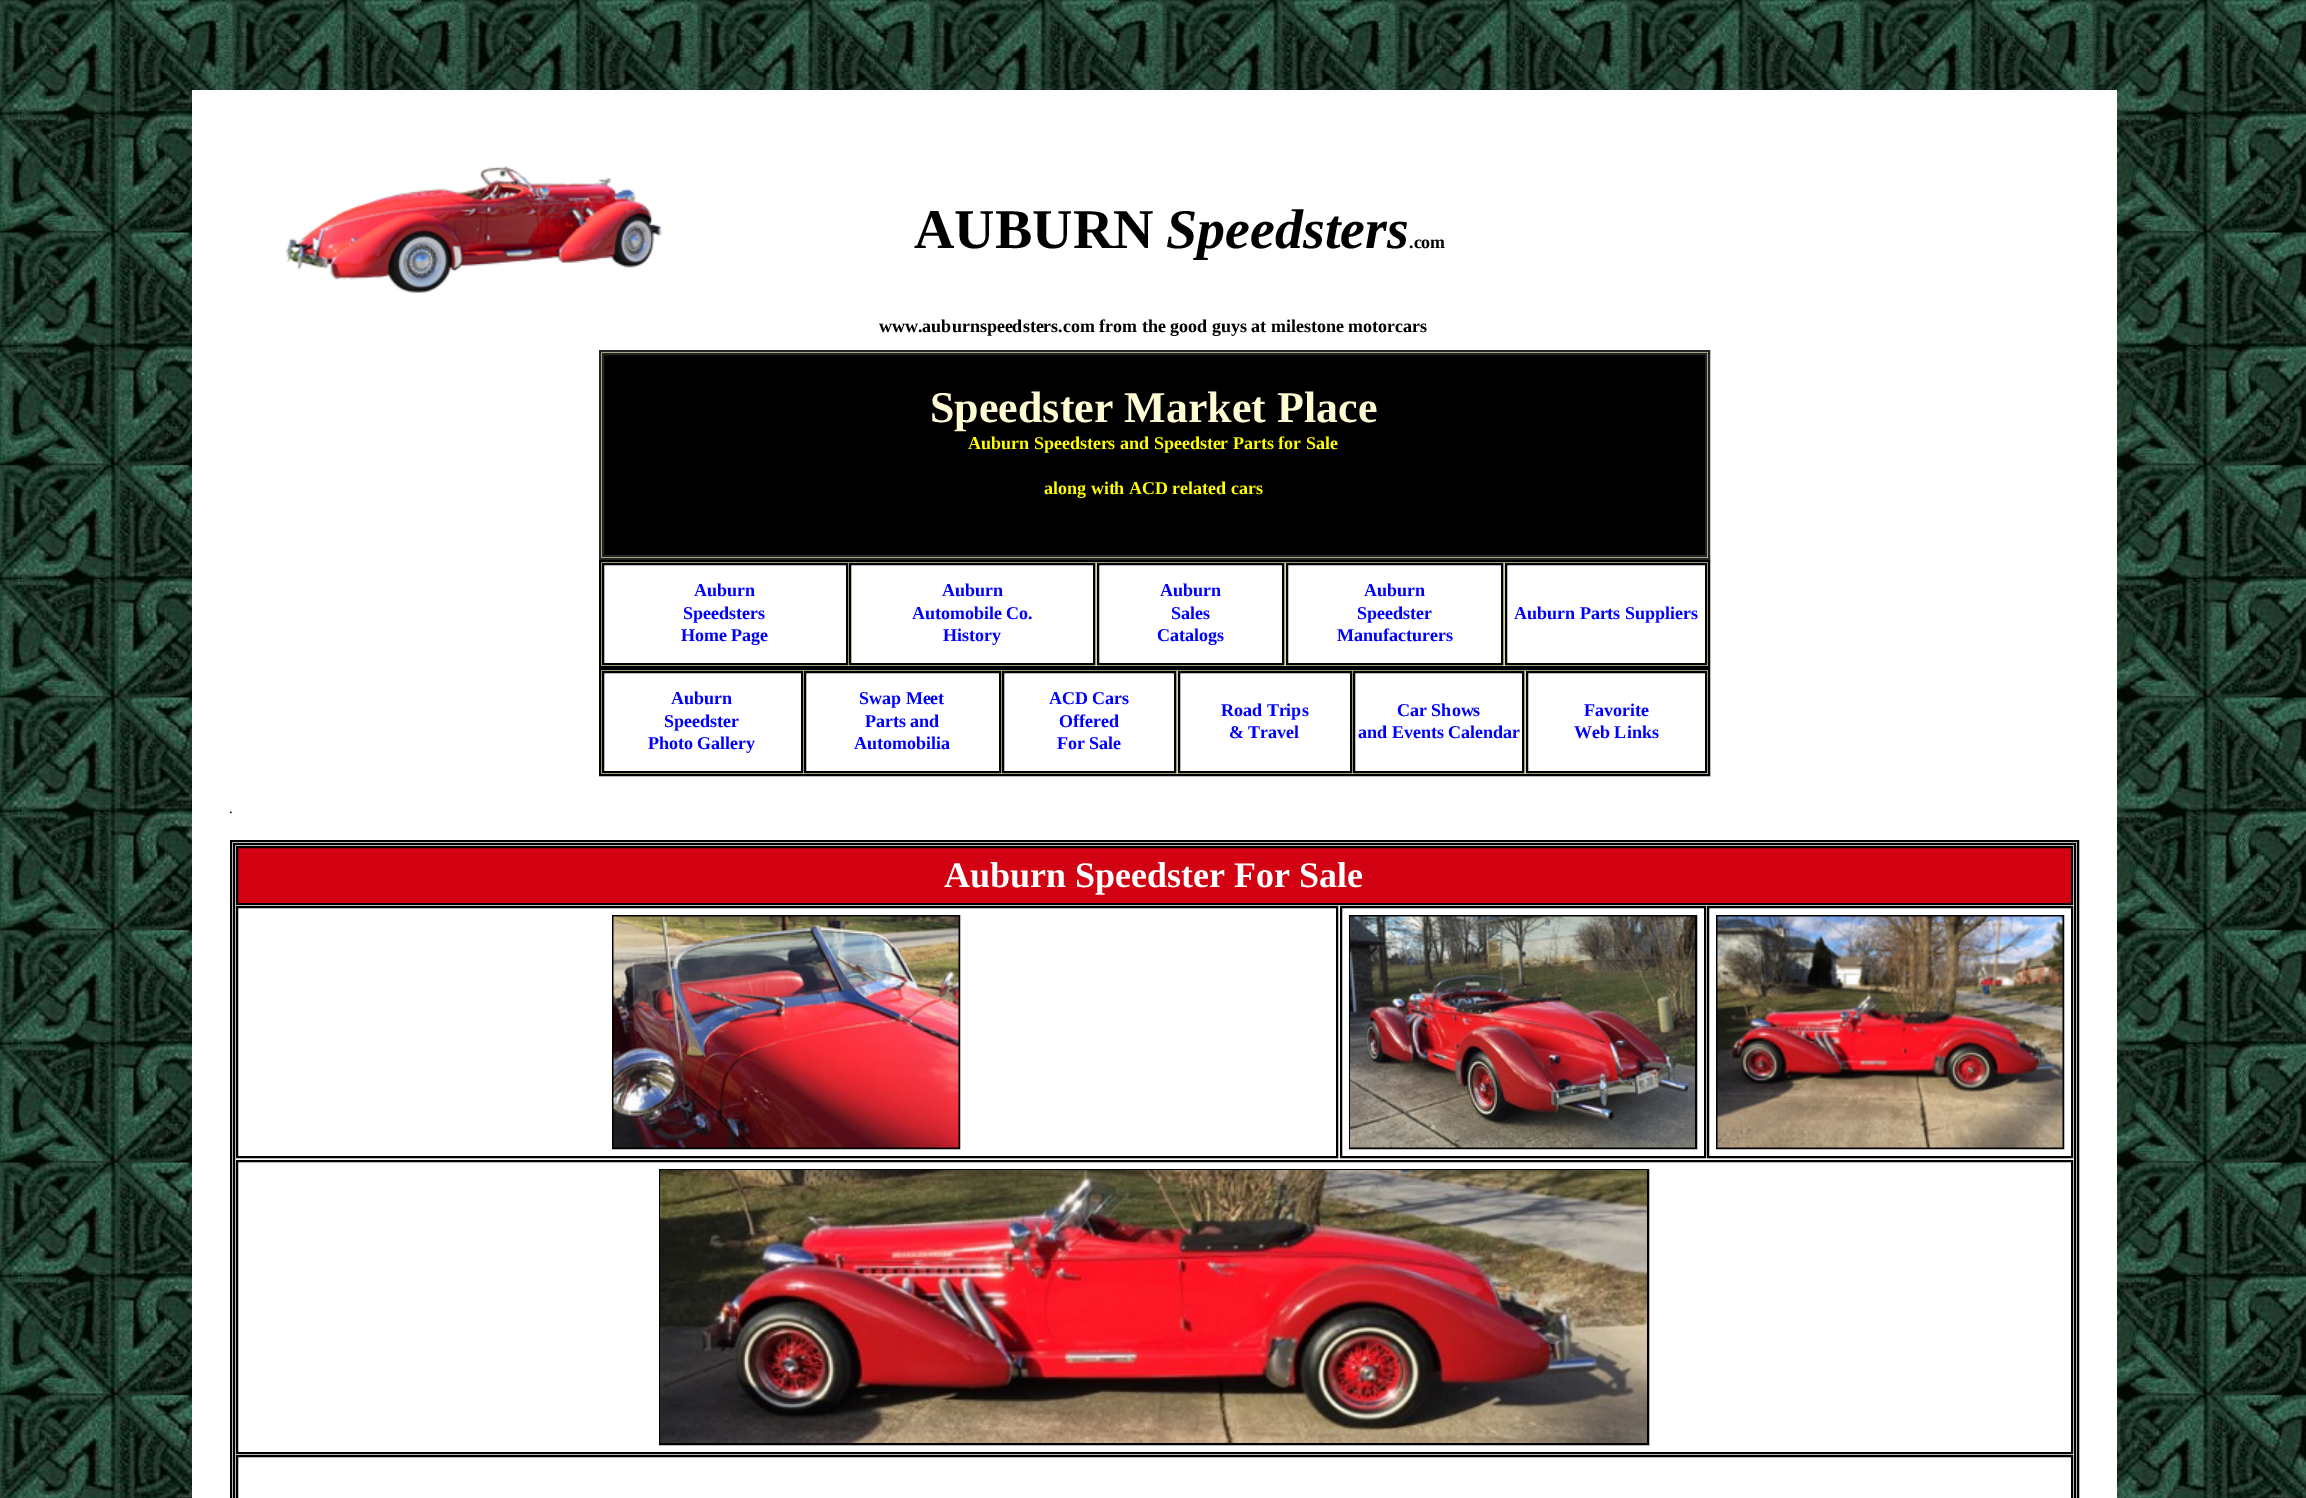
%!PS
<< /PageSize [2306 1498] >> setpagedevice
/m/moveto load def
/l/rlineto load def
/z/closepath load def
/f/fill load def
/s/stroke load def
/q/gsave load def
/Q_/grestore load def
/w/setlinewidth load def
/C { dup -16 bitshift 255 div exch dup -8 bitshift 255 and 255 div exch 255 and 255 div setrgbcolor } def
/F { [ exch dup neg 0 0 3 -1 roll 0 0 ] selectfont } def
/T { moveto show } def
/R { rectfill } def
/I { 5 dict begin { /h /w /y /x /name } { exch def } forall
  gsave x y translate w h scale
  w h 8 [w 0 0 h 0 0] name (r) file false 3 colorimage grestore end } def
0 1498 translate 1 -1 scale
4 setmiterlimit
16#FFFFFF C
0 0 2306 1498 R
(1.rgb) 0 0 2306 1498 I
192 90 1925 1408 R
(2.rgb) 286 166 376 127 I
/LiberationSerif-Bold 56 F
16#000000 C
(AUBURN) 914 248 T
/LiberationSerif-BoldItalic 56 F
(Speedsters) 1166 248 T
/LiberationSerif-Bold 18 F
(.com) 1409 248 T
(www.auburnspeedsters.com from the good guys at milestone motorcars) 879 332 T
16#D8D6A5 C
600 351 m 1109 0 l 0 208 l -1109 0 l z q f Q_
16#242424 C
2 w
s
16#000000 C
603 354 m 1103 0 l 0 202 l -1103 0 l z q f Q_
16#242424 C
s
/LiberationSerif-Bold 44 F
16#FEFAD2 C
(Speedster Market Place) 930 422 T
/LiberationSerif-Bold 18 F
16#FFFF00 C
(Auburn Speedsters and Speedster Parts for Sale) 968 449 T
(along with ACD related cars) 1044 494 T
16#D8D6A5 C
600 561 m 1109 0 l 0 106 l -1109 0 l z q f Q_
16#000000 C
s
16#FFFFFF C
603 564 m 244 0 l 0 100 l -244 0 l z q f Q_
16#000000 C
s
16#0000FF C
(Auburn) 694 596 T
(Speedsters) 683 619 T
(Home Page) 681 641 T
16#FFFFFF C
850 564 m 244 0 l 0 100 l -244 0 l z q f Q_
16#000000 C
s
16#0000FF C
(Auburn) 942 596 T
(Automobile Co.) 912 619 T
(History) 943 641 T
16#FFFFFF C
1098 564 m 185 0 l 0 100 l -185 0 l z q f Q_
16#000000 C
s
16#0000FF C
(Auburn) 1160 596 T
(Sales) 1171 619 T
(Catalogs) 1157 641 T
16#FFFFFF C
1287 564 m 215 0 l 0 100 l -215 0 l z q f Q_
16#000000 C
s
16#0000FF C
(Auburn) 1364 596 T
(Speedster) 1357 619 T
(Manufacturers) 1337 641 T
16#FFFFFF C
1506 564 m 200 0 l 0 100 l -200 0 l z q f Q_
16#000000 C
s
16#0000FF C
(Auburn Parts Suppliers) 1514 619 T
16#D8D6A5 C
600 669 m 1109 0 l 0 106 l -1109 0 l z q f Q_
16#000000 C
s
16#FFFFFF C
603 672 m 199 0 l 0 100 l -199 0 l z q f Q_
16#000000 C
s
16#0000FF C
(Auburn) 671 704 T
(Speedster) 664 727 T
(Photo Gallery) 648 749 T
16#FFFFFF C
805 672 m 195 0 l 0 100 l -195 0 l z q f Q_
16#000000 C
s
16#0000FF C
(Swap Meet) 859 704 T
(Parts and) 865 727 T
(Automobilia) 854 749 T
16#FFFFFF C
1003 672 m 172 0 l 0 100 l -172 0 l z q f Q_
16#000000 C
s
16#0000FF C
(ACD Cars) 1049 704 T
(Offered) 1059 727 T
(For Sale) 1057 749 T
16#FFFFFF C
1179 672 m 172 0 l 0 100 l -172 0 l z q f Q_
16#000000 C
s
16#0000FF C
(Road Trips) 1221 716 T
(& Travel) 1229 738 T
16#FFFFFF C
1354 672 m 169 0 l 0 100 l -169 0 l z q f Q_
16#000000 C
s
16#0000FF C
(Car Shows) 1397 716 T
(and Events Calendar) 1358 738 T
16#FFFFFF C
1527 672 m 179 0 l 0 100 l -179 0 l z q f Q_
16#000000 C
s
16#0000FF C
(Favorite) 1584 716 T
(Web Links) 1574 738 T
/LiberationSerif-Regular 15 F
16#000000 C
(.) 229 813 T
231 841 1847 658 rectstroke
234 844 1841 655 rectstroke
16#D20212 C
237 847 m 1835 0 l 0 57 l -1835 0 l z q f Q_
16#000000 C
s
/LiberationSerif-Bold 36 F
16#FFFFFF C
(Auburn Speedster For Sale) 944 887 T
16#000000 C
237 907 1100 250 rectstroke
613 916 346 232 rectstroke
(3.rgb) 613 916 346 232 I
1341 907 364 250 rectstroke
1350 916 346 232 rectstroke
(4.rgb) 1350 916 345 232 I
1708 907 364 250 rectstroke
1717 916 346 232 rectstroke
(5.rgb) 1717 916 346 232 I
237 1161 1835 292 rectstroke
660 1170 988 274 rectstroke
(6.rgb) 660 1170 987 273 I
237 1456 1835 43 rectstroke
showpage
